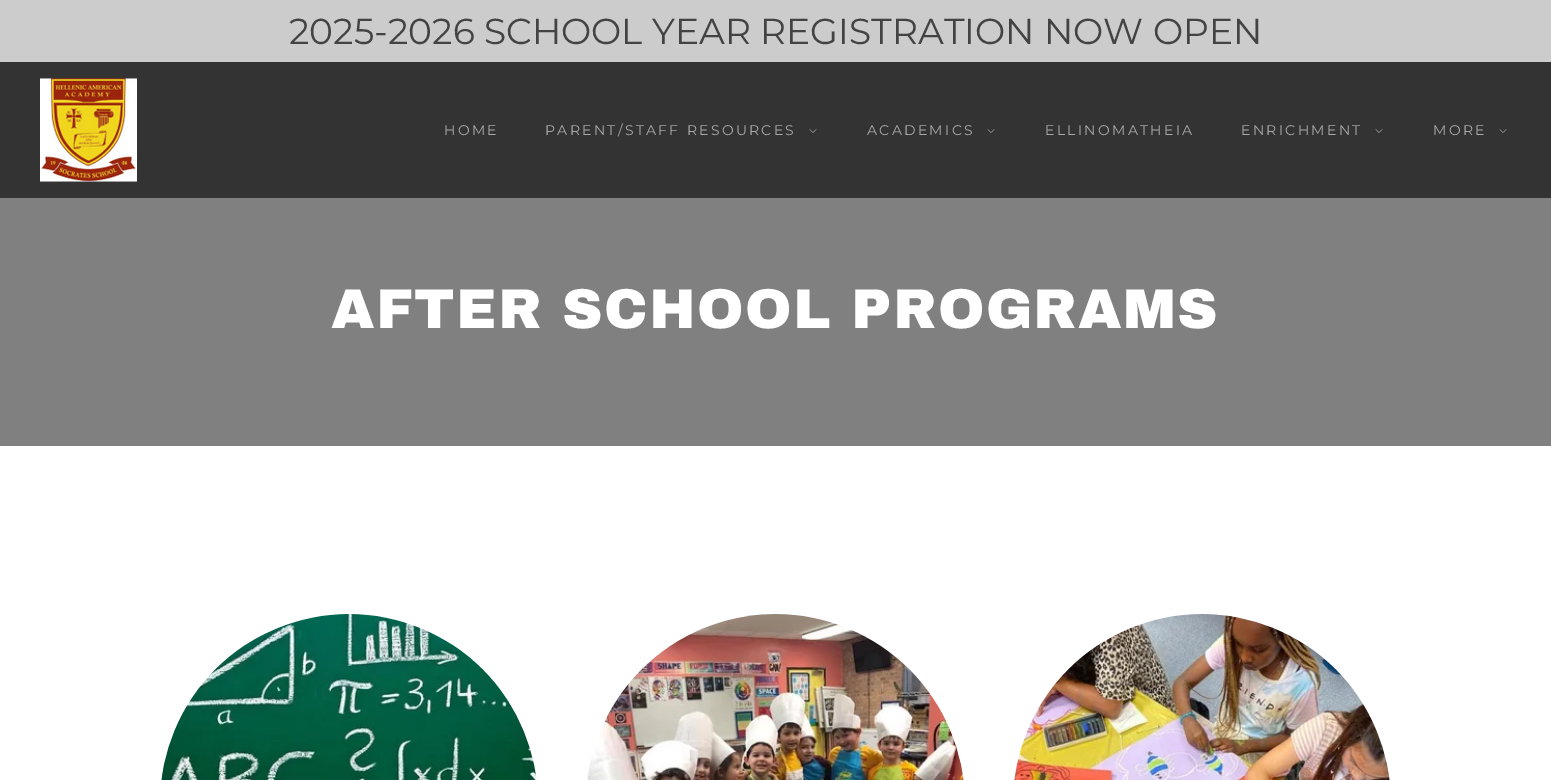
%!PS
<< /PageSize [1551 780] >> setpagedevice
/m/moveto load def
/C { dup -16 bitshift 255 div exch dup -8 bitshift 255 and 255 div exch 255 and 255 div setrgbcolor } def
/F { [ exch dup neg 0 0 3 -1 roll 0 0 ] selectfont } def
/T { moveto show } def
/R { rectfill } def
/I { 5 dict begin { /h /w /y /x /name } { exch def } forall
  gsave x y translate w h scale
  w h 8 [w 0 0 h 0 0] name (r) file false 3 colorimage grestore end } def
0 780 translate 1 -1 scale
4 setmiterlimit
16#808080 C
0 0 1551 780 R
16#CCCCCC C
0 0 1551 62 R
/Montserrat-Regular 36 F
16#434343 C
(2025-2026 SCHOOL YEAR REGISTRATION NOW OPEN) 289 44 T
16#333333 C
0 62 1551 136 R
(1.rgb) 40 78 97 104 I
/Montserrat-Regular 14 F
16#A9A9A9 C
444 135 m 2.3 0 (HOME) ashow
545 135 m 2.3 0 (PARENT/STAFF RESOURCES) ashow
(2.rgb) 809 129 8 4 I
867 135 m 2.3 0 (ACADEMICS) ashow
(2.rgb) 987 129 8 4 I
1045 135 m 2.3 0 (ELLINOMATHEIA) ashow
1241 135 m 2.3 0 (ENRICHMENT) ashow
(2.rgb) 1375 129 8 4 I
1433 135 m 2.3 0 (MORE) ashow
(2.rgb) 1499 129 8 4 I
/ArchivoBlack-Black 56 F
16#FFFFFF C
331 328 m 1.25 0 (AFTER SCHOOL PROGRAMS) ashow
0 446 1551 334 R
(3.rgb) 161 614 376 166 I
(4.rgb) 587 614 377 166 I
(5.rgb) 1014 614 376 166 I
showpage
